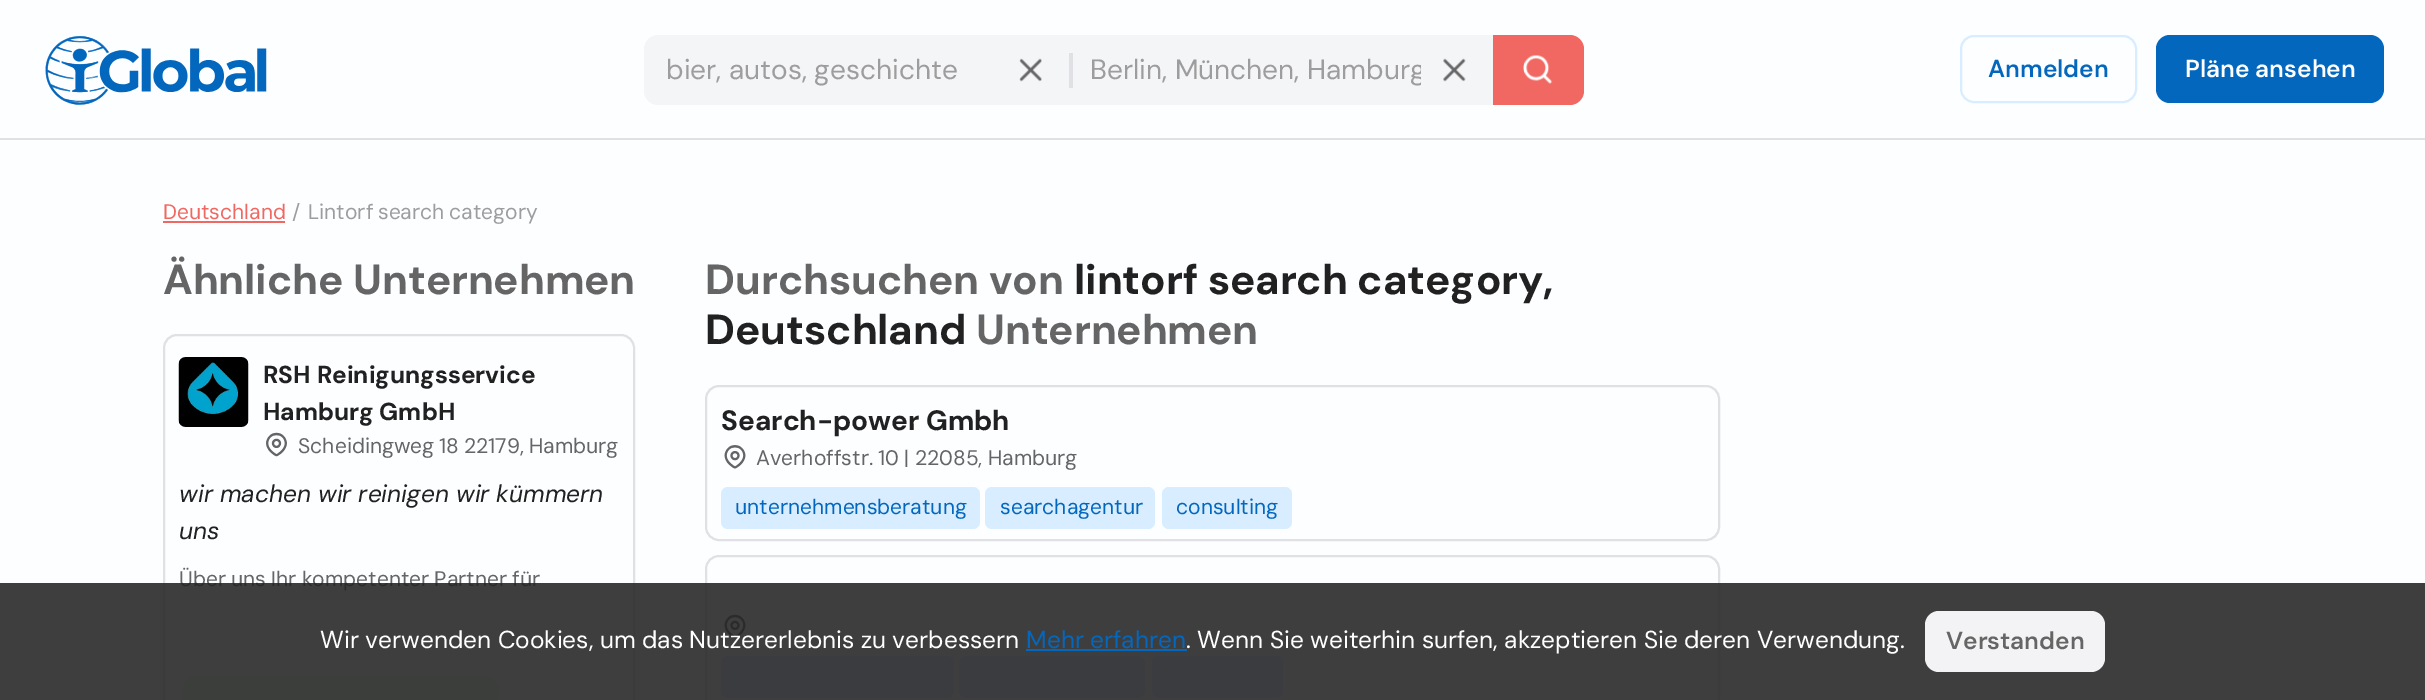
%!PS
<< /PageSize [2425 700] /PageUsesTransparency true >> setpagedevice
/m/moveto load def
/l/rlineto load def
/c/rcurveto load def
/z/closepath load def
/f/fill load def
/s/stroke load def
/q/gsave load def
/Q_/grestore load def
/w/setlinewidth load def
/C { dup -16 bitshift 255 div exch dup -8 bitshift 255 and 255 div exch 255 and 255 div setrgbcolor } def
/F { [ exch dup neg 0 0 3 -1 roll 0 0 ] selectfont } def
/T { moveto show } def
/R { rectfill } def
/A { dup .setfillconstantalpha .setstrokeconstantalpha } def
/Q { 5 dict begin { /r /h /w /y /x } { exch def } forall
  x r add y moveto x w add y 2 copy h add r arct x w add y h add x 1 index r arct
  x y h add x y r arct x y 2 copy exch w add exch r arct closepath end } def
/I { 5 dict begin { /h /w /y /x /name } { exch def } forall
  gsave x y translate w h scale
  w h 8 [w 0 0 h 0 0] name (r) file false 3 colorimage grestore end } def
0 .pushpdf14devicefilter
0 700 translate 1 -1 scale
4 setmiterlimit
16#FCFEFF C
0 0 2425 700 R
16#E1E1E5 C
0 138 2425 2 R
(1.rgb) 45 36 222 69 I
16#F4F5F6 C
658 35 m 411 0 l 0 70 l -411 0 l -7.5 0 -14 -6.5 -14 -14 c 0 -42 l 0 -7.5 6.5 -14 14 -14 c z f
/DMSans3-Regular 28 F
16#9D9C9E C
(bier, autos, geschichte) 666 79 T
(2.rgb) 1019 58 23 24 I
16#F4F5F6 C
1069 35 424 70 R
16#E1E1E5 C
1069 53 4 35 R
q
1090 51 331 37 rectclip
16#9D9C9E C
(Berlin, München, Hamburg) 1090 79 T
Q_
(3.rgb) 1443 58 23 24 I
16#F16862 C
1493 35 m 77 0 l 7.5 0 14 6.5 14 14 c 0 42 l 0 7.5 -6.5 14 -14 14 c -77 0 l z f
(4.rgb) 1523 55 30 29 I
16#D8EDFF C
2 w
1961 36 175 66 13 Q s
/DMSans-SemiBold 24.5 F
16#0367BD C
(Anmelden) 1988 77 T
2156 35 228 68 14 Q f
16#FFFFFF C
(Pläne ansehen) 2185 77 T
/DMSans-Regular 21 F
16#F16862 C
(Deutschland) 163 219 T
163 221 122 2 R
16#9D9C9E C
(/) 292 219 T
308 219 m -1 0 32 (Lintorf search category) widthshow
/DMSans-Bold 42 F
16#656566 C
(Ähnliche Unternehmen) 163 294 T
16#E1E1E5 C
164 335 470 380 13 Q s
(5.rgb) 178 357 71 70 I
/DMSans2-Bold 24.5 F
16#212121 C
(RSH Reinigungsservice) 263 383 T
(Hamburg GmbH) 263 420 T
(6.rgb) 266 432 21 25 I
/DMSans-Regular 21 F
16#656566 C
298 453 m -1 0 32 (Scheidingweg 18 22179, Hamburg) widthshow
/DMSans-Italic 24.5 F
16#212121 C
(wir machen wir reinigen wir kümmern) 179 502 T
(uns) 179 539 T
/DMSans-Regular 21 F
16#656566 C
179 586 m -.5 0 32 (Über uns Ihr kompetenter Partner für) widthshow
16#F3FDF2 C
179 672 341 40 20 Q f
16#E7FCE3 C
182 676 317 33 16.5 Q f
/DMSans-Bold 42 F
16#656566 C
(Durchsuchen von) 705 294 T
16#212121 C
(lintorf search category,) 1074 294 T
(Deutschland) 705 344 T
16#656566 C
(Unternehmen) 976 344 T
16#E1E1E5 C
706 386 1013 154 13 Q s
/DMSans3-Bold 28 F
16#212121 C
(Search-power Gmbh) 721 430 T
(7.rgb) 724 445 22 24 I
/DMSans-Regular 21 F
16#656566 C
756 465 m -.5 0 32 (Averhoffstr. 10 | 22085, Hamburg) widthshow
16#D8EDFF C
721 487 259 42 7 Q f
16#0367BD C
(unternehmensberatung) 735 514 T
16#D8EDFF C
985 487 170 42 7 Q f
16#0367BD C
(searchagentur) 1000 514 T
16#D8EDFF C
1162 487 130 42 7 Q f
16#0367BD C
(consulting) 1176 514 T
16#E1E1E5 C
706 556 1013 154 13 Q s
(8.rgb) 724 614 22 25 I
16#D8EDFF C
721 656 233 42 7 Q f
959 656 186 42 7 Q f
1152 656 131 42 7 Q f
0.87 A
16#222222 C
0 583 2425 117 R
/DMSans2-Regular 24.5 F
1 A
16#FFFFFF C
(Wir verwenden Cookies, um das Nutzererlebnis zu verbessern) 320 648 T
16#0367BD C
(Mehr erfahren) 1026 648 T
1026 649 161 2 R
16#FFFFFF C
(. Wenn Sie weiterhin surfen, akzeptieren Sie deren Verwendung.) 1186 648 T
16#F3F3F5 C
1925 611 180 61 14 Q f
/DMSans-SemiBold 24.5 F
16#656566 C
(Verstanden) 1946 649 T
.poppdf14devicefilter showpage
